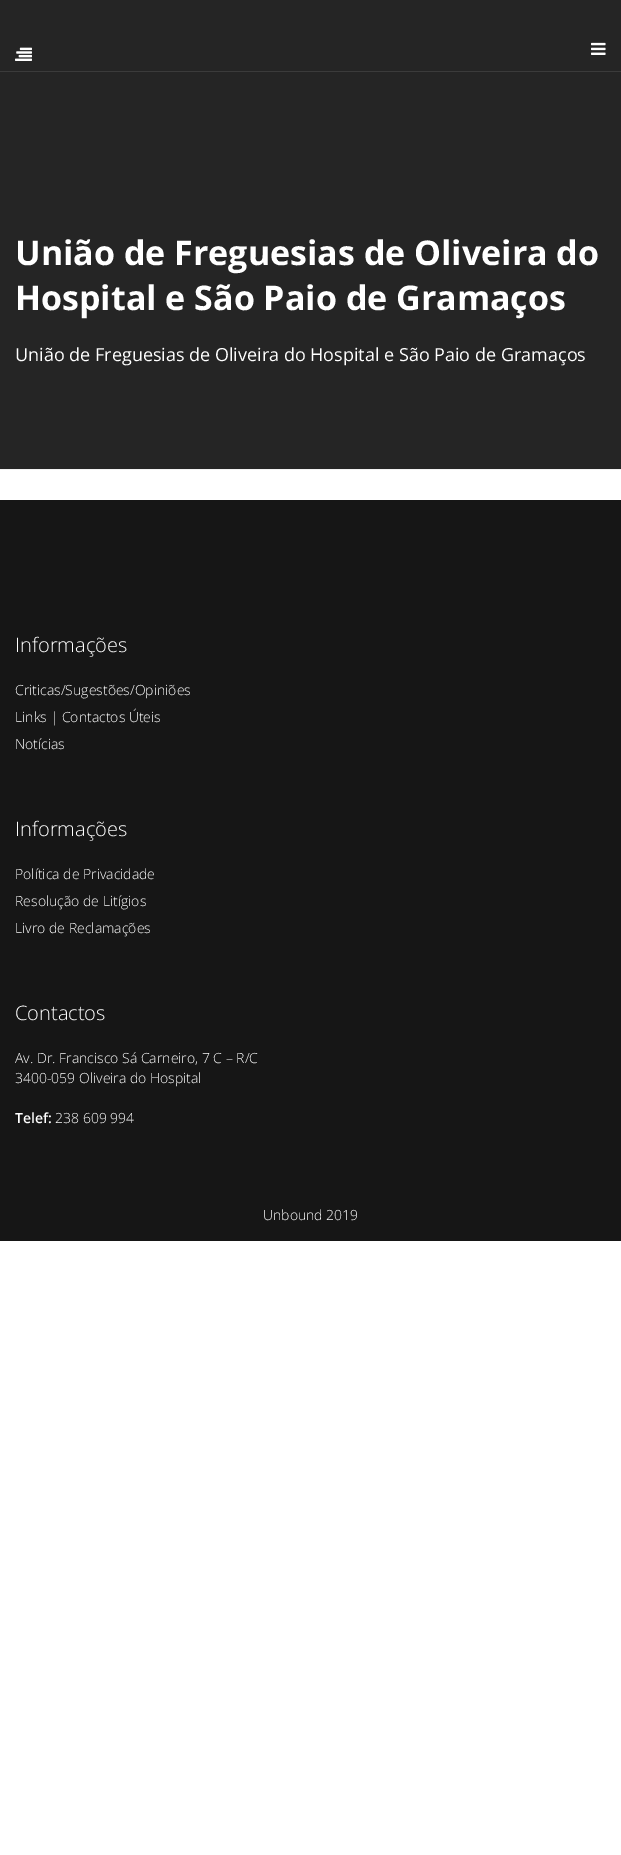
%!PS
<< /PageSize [621 1855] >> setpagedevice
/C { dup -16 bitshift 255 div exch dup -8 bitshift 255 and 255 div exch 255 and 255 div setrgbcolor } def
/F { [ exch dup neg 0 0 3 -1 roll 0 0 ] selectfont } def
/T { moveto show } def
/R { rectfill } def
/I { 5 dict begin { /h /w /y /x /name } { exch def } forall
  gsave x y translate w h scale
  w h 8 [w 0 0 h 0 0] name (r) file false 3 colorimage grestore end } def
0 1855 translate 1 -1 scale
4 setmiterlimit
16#FFFFFF C
0 0 621 1855 R
16#252525 C
0 0 621 469 R
16#3B3B3B C
0 71 621 1 R
(1.rgb) 15 47 17 14 I
(2.rgb) 591 42 15 13 I
16#F2F2F2 C
0 469 621 1 R
/OpenSans-Bold 34 F
16#FFFFFF C
(União de Freguesias de Oliveira do) 15 265 T
(Hospital e São Paio de Gramaços) 15 310 T
/OpenSans-Regular 18 F
(União de Freguesias de Oliveira do Hospital e São Paio de Gramaços) 15 361 T
16#161616 C
0 500 621 741 R
/OpenSans-Light 20 F
16#FFFFFF C
(Informações) 15 652 T
/OpenSans-Light 14 F
(Criticas/Sugestões/Opiniões) 15 695 T
(Links | Contactos Úteis) 15 722 T
(Notícias) 15 749 T
/OpenSans-Light 20 F
(Informações) 15 836 T
/OpenSans-Light 14 F
(Política de Privacidade) 15 879 T
(Resolução de Litígios) 15 906 T
(Livro de Reclamações) 15 933 T
/OpenSans-Light 20 F
(Contactos) 15 1020 T
/OpenSans-Light 14 F
(Av. Dr. Francisco Sá Carneiro, 7 C – R/C) 15 1063 T
(3400-059 Oliveira do Hospital) 15 1083 T
/OpenSans-SemiBold 14 F
(Telef:) 15 1123 T
/OpenSans-Light 14 F
(238 609 994) 55 1123 T
(Unbound 2019) 263 1220 T
showpage
